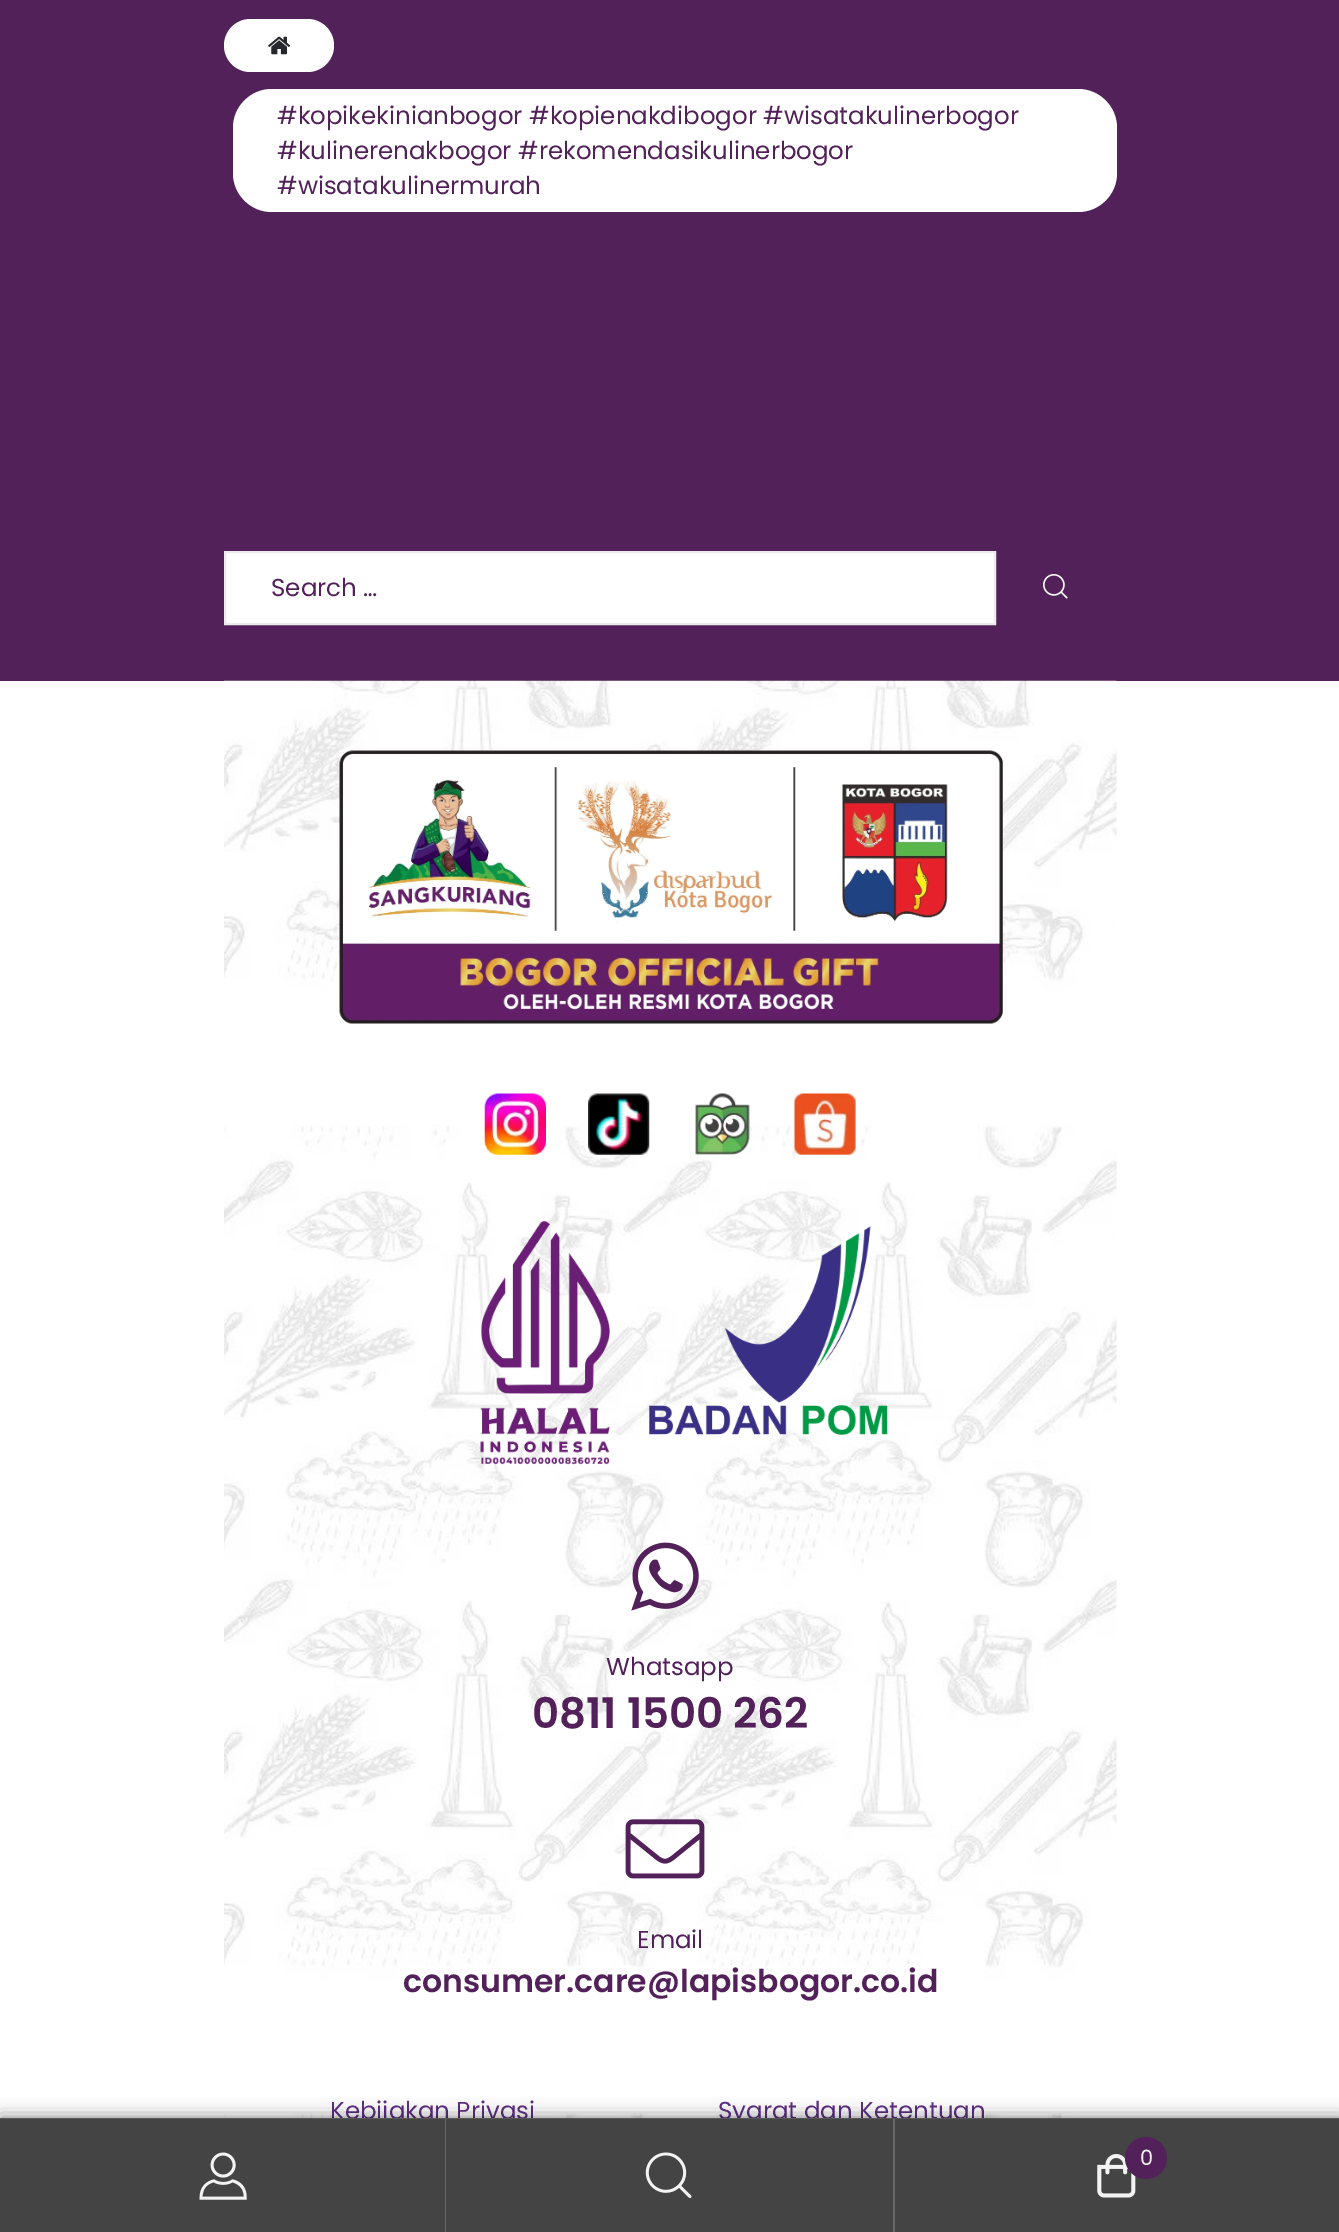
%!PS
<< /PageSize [1339 2232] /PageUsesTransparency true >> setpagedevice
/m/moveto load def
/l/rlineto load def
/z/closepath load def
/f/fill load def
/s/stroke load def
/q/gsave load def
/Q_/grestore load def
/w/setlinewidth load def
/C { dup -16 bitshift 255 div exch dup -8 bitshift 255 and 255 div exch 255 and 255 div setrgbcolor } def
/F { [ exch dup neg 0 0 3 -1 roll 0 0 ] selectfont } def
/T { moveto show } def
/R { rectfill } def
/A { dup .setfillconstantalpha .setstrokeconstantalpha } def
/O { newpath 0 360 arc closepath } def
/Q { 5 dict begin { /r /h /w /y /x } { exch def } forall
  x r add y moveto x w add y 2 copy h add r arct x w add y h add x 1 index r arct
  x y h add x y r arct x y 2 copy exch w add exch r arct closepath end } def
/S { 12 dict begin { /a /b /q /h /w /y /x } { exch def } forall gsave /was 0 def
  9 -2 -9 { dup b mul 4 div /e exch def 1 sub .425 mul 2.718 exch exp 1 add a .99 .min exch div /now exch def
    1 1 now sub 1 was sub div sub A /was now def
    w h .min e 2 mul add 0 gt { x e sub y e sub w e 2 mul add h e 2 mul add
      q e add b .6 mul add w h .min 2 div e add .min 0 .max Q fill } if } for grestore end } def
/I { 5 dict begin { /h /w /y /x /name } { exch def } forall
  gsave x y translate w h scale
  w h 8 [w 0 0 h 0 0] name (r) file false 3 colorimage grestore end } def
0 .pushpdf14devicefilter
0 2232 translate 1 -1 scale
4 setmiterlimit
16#522159 C
0 0 1339 2232 R
16#FFFFFF C
224 19 110 53 26.5 Q f
(1.rgb) 268 36 23 19 I
233 89 884 123 39 Q f
/Poppins-Regular 24.5 F
16#522159 C
(#kopikekinianbogor #kopienakdibogor #wisatakulinerbogor) 277 124 T
(#kulinerenakbogor #rekomendasikulinerbogor) 277 159 T
(#wisatakulinermurah) 277 194 T
16#FFFFFF C
225 552 m 770 0 l 0 72 l -770 0 l z q f Q_
16#EBEBEB C
2 w
s
16#522159 C
(Search …) 271 596 T
(2.rgb) 1043 574 25 25 I
16#FFFFFF C
0 681 1339 1437 R
(3.rgb) 224 680 893 1438 I
(4.rgb) 339 750 664 274 I
(5.rgb) 484 1093 62 62 I
(6.rgb) 588 1093 62 62 I
(7.rgb) 695 1093 55 62 I
(8.rgb) 794 1093 62 62 I
(9.rgb) 480 1221 130 244 I
(10.rgb) 649 1226 239 209 I
(11.rgb) 631 1542 68 69 I
16#522159 C
(Whatsapp) 606 1675 T
/Poppins-SemiBold 42 F
(0811 1500 262) 532 1728 T
(12.rgb) 625 1819 80 60 I
/Poppins-Regular 24.5 F
(Email) 637 1948 T
/Poppins-SemiBold 31.5 F
(consumer.care@lapisbogor.co.id) 403 1992 T
/Poppins-Regular 24.5 F
16#5E2E84 C
(Kebijakan Privasi) 330 2119 T
(Syarat dan Ketentuan) 718 2119 T
16#000000 C
0 2118 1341 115 0 9 .5 S
16#575757 C
0 2118 1339 1 R
16#444444 C
0 2119 893 113 R
0.2 A
16#FFFFFF C
445 2119 1 113 R
1 A
(13.rgb) 199 2152 48 48 I
16#696969 C
893 2119 2 113 R
(14.rgb) 645 2152 47 46 I
16#444444 C
895 2119 444 113 R
(15.rgb) 1097 2154 39 44 I
16#522159 C
1146 2158 21 O f
/Poppins-Regular 21 F
16#F3F3F3 C
(0) 1140 2165 T
.poppdf14devicefilter showpage
